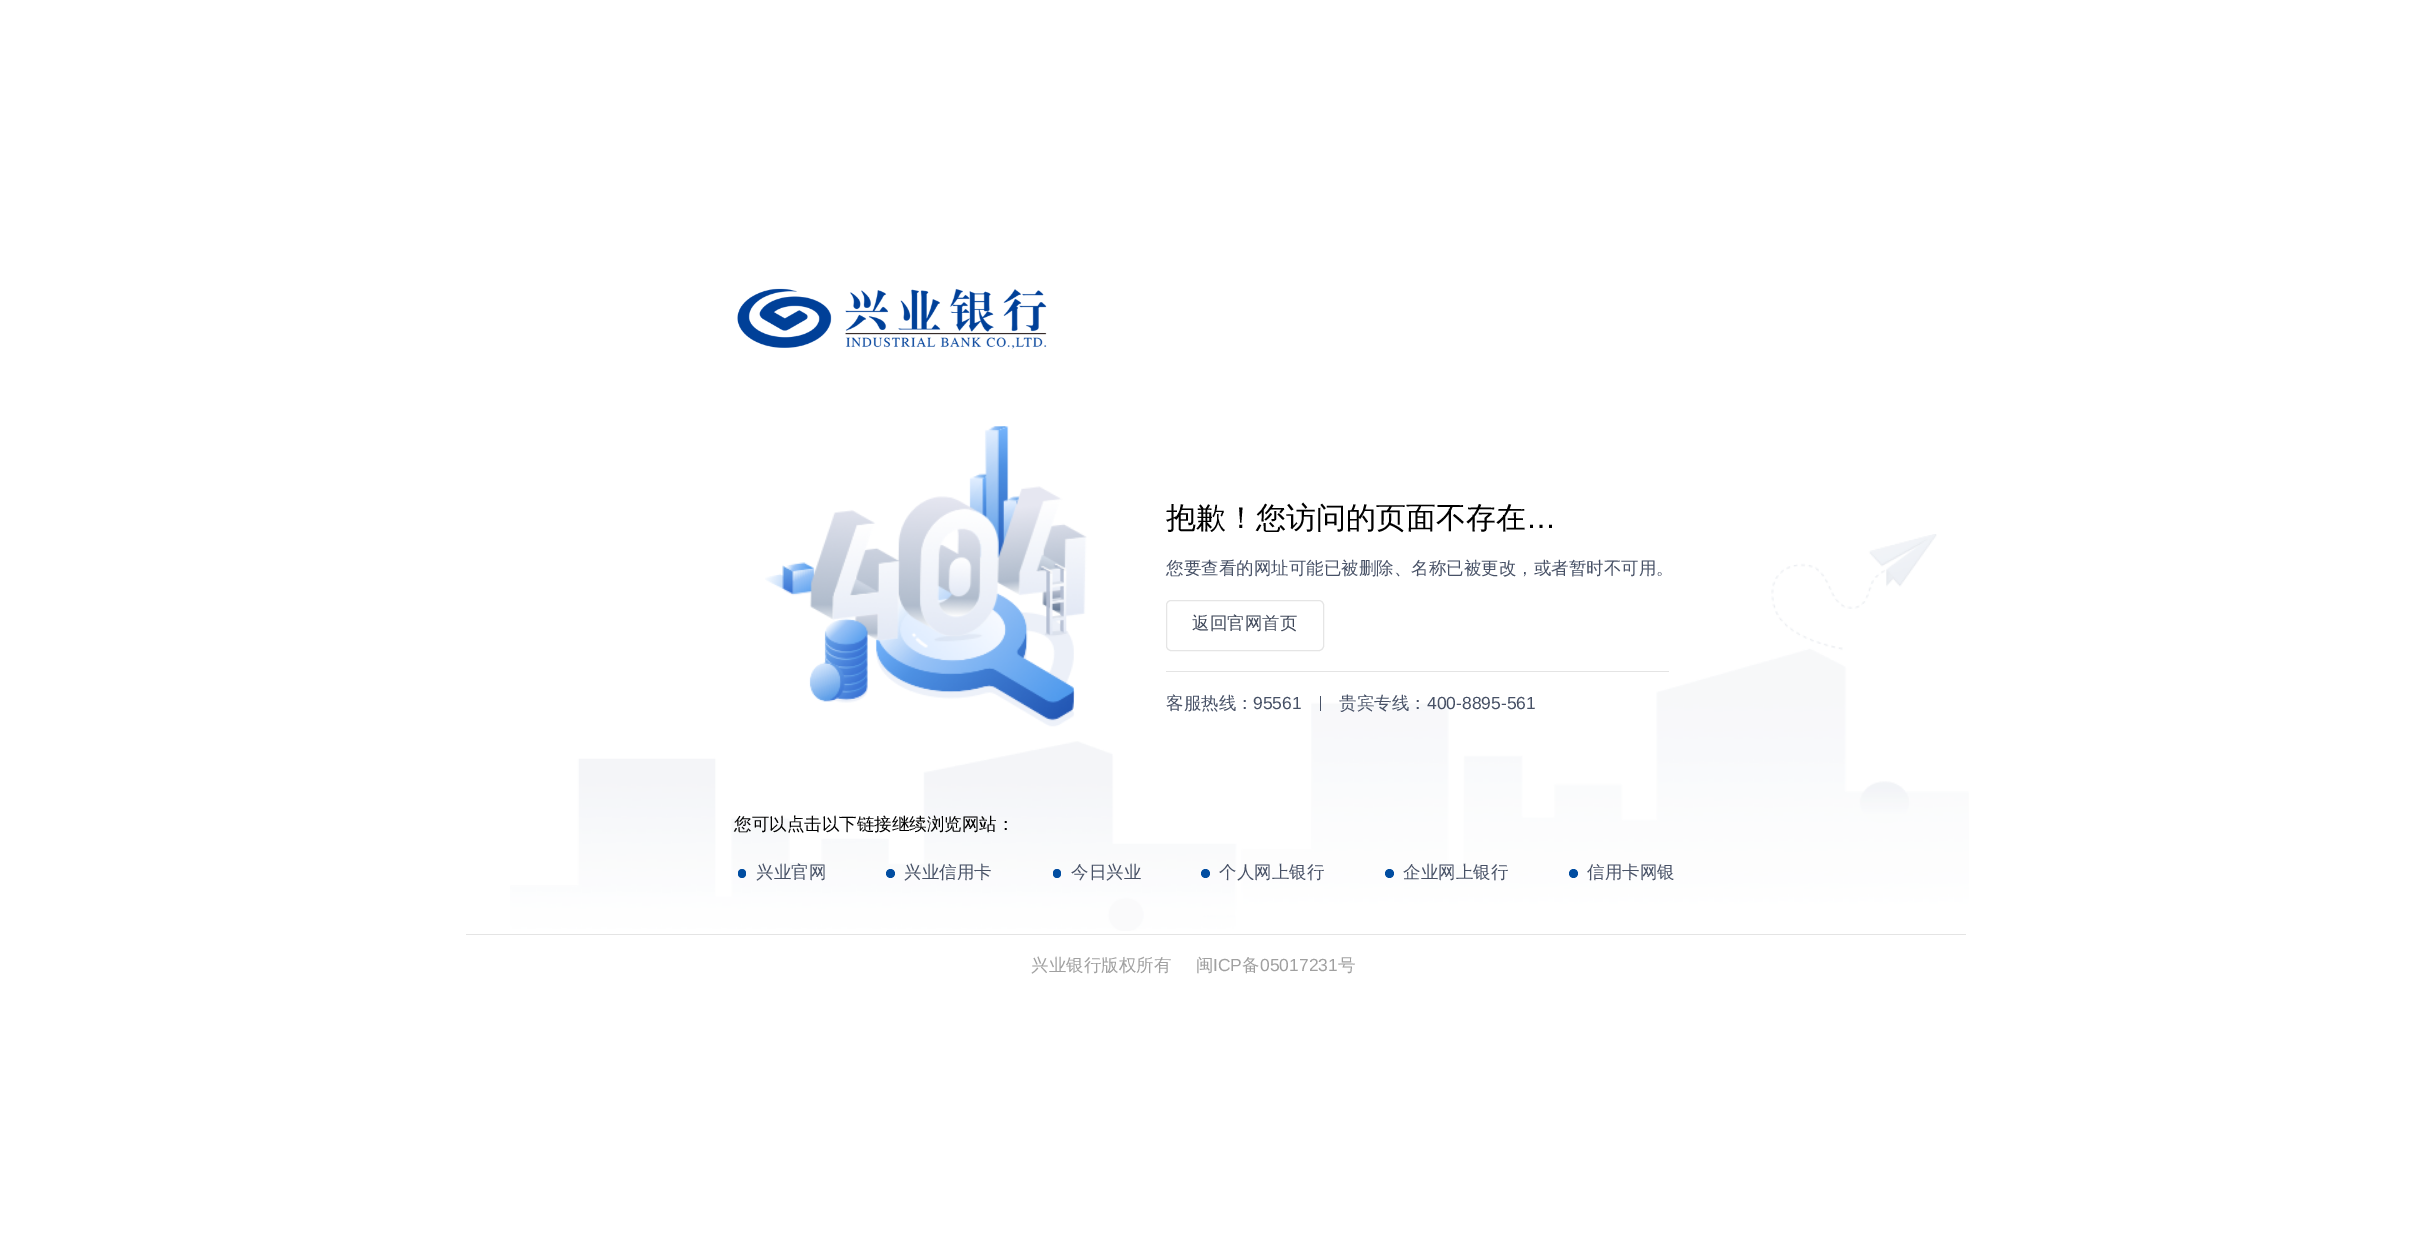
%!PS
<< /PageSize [2436 1254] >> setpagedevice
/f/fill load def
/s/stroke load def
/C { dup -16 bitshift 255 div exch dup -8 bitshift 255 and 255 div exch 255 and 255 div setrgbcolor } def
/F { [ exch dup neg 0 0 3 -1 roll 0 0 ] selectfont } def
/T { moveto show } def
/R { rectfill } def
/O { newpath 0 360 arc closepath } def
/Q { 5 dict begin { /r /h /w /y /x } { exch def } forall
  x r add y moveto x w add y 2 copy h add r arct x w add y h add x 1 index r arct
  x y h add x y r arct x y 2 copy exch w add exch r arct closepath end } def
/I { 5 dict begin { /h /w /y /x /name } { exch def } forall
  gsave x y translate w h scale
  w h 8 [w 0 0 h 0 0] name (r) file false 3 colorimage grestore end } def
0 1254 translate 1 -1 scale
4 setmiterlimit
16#FFFFFF C
0 0 2436 1254 R
(1.rgb) 510 534 1459 397 I
(2.rgb) 737 288 310 61 I
(3.rgb) 765 426 322 301 I
/WenQuanYiZenHei-Medium 30 F
16#000000 C
(抱歉！您访问的页面不存在) 1166 528 T
/LiberationSans-Regular 30 F
(…) 1526 528 T
/WenQuanYiZenHei-Medium 17.5 F
16#475166 C
(您要查看的网址可能已被删除、名称已被更改，或者暂时不可用。) 1166 574 T
16#E5E5E5 C
1166.5 600.5 157 50 4.5 Q s
16#3F485A C
(返回官网首页) 1192 629 T
16#E4E4E4 C
1166 671 503 1 R
16#475166 C
(客服热线：) 1166 709 T
/LiberationSans-Regular 17.5 F
(95561) 1253 709 T
1320 696 1 15 R
/WenQuanYiZenHei-Medium 17.5 F
(贵宾专线：) 1339 709 T
/LiberationSans-Regular 17.5 F
(400-8895-561) 1427 709 T
/WenQuanYiZenHei-Medium 17.5 F
16#000000 C
(您可以点击以下链接继续浏览网站：) 734 830 T
16#014DA1 C
738 869 8 9 4 Q f
16#475166 C
(兴业官网) 756 878 T
16#014DA1 C
890.5 873.5 4.5 O f
16#475166 C
(兴业信用卡) 904 878 T
16#014DA1 C
1053 869 8 9 4 Q f
16#475166 C
(今日兴业) 1071 878 T
16#014DA1 C
1205.5 873.5 4.5 O f
16#475166 C
(个人网上银行) 1219 878 T
16#014DA1 C
1389.5 873.5 4.5 O f
16#475166 C
(企业网上银行) 1403 878 T
16#014DA1 C
1573.5 873.5 4.5 O f
16#475166 C
(信用卡网银) 1587 878 T
16#E4E4E4 C
466 934 1500 1 R
16#A0A0A0 C
(兴业银行版权所有) 1031 971 T
(闽) 1196 971 T
/LiberationSans-Regular 17.5 F
(ICP) 1213 971 T
/WenQuanYiZenHei-Medium 17.5 F
(备) 1242 971 T
/LiberationSans-Regular 17.5 F
(05017231) 1260 971 T
/WenQuanYiZenHei-Medium 17.5 F
(号) 1338 971 T
showpage
